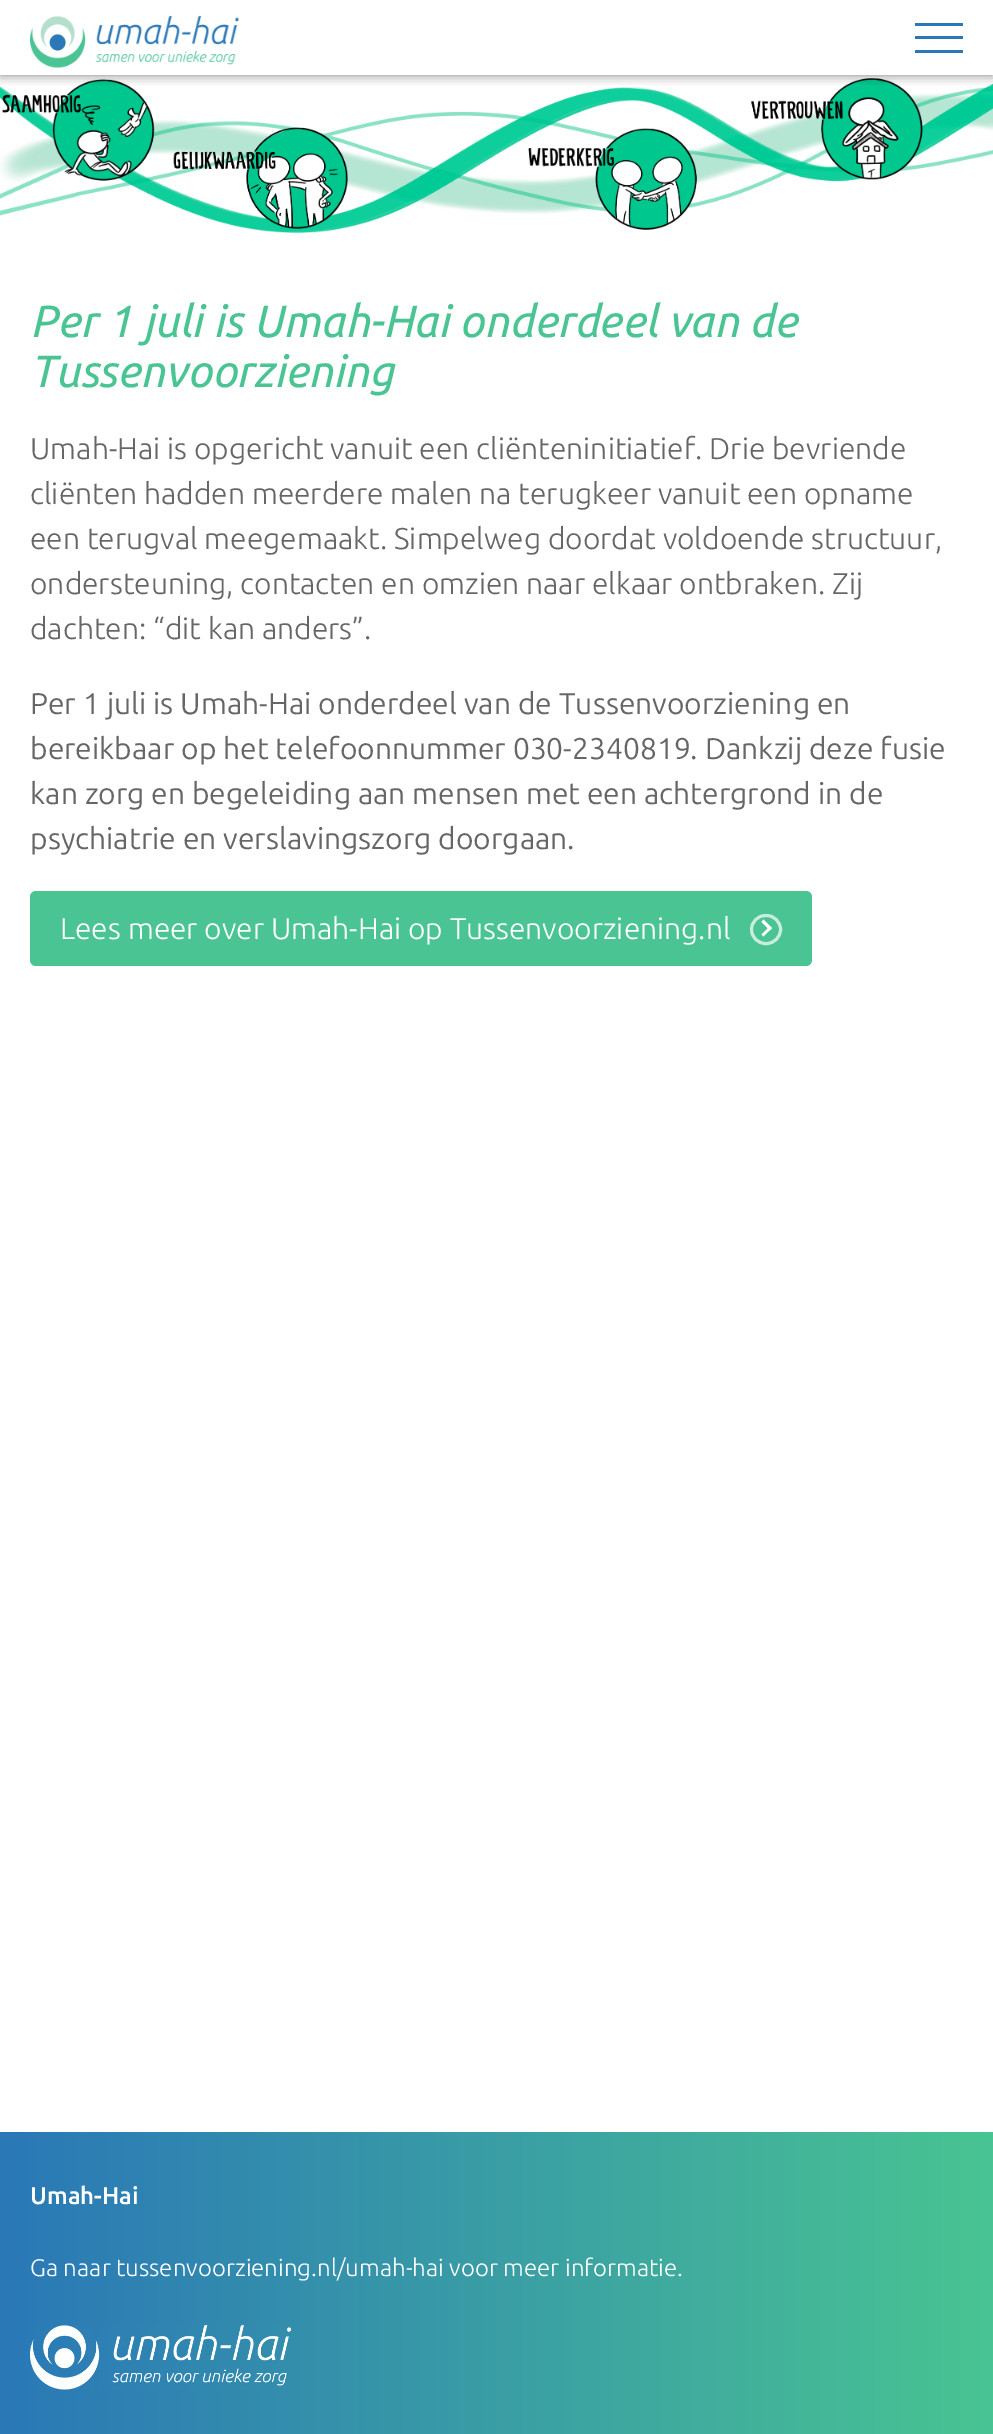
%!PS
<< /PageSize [993 2434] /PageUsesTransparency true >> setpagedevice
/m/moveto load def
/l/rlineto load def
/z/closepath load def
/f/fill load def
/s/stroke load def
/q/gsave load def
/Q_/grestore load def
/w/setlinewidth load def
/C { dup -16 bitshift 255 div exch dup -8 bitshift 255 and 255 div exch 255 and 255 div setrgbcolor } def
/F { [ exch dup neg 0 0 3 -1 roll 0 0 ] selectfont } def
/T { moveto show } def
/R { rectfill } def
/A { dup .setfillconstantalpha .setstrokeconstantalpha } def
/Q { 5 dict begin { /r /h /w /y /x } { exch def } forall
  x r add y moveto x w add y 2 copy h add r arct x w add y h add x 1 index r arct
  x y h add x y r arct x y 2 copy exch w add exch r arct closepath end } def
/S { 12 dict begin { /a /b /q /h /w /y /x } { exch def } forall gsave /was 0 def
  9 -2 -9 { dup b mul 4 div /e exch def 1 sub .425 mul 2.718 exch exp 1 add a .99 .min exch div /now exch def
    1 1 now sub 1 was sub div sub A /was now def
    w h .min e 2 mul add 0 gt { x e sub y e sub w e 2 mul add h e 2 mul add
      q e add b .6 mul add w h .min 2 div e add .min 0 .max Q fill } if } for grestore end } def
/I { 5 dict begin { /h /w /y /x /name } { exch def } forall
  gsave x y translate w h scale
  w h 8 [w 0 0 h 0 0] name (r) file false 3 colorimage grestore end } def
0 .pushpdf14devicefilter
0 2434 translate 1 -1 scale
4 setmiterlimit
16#FFFFFF C
0 0 993 2434 R
(2.rgb) 0 78 993 155 I
q
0 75 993 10 rectclip
16#000000 C
0 0 993 75 0 6 .5 S
Q_
(1.rgb) 30 15 209 53 I
16#2A78B7 C
915 23 48 3 R
915 36 48 3 R
915 50 48 3 R
/Ubuntu-Italic 45 F
16#49C492 C
(Per 1 juli is Umah-Hai onderdeel van de) 30 337 T
(Tussenvoorziening) 30 387 T
/Ubuntu-Light 30 F
16#666666 C
(Umah-Hai is opgericht vanuit een cliënteninitiatief. Drie bevriende) 30 459 T
(cliënten hadden meerdere malen na terugkeer vanuit een opname) 30 504 T
(een terugval meegemaakt. Simpelweg doordat voldoende structuur,) 30 549 T
(ondersteuning, contacten en omzien naar elkaar ontbraken. Zij) 30 594 T
(dachten: “dit kan anders”.) 30 639 T
/Ubuntu-Regular 30 F
(Per 1 juli is Umah-Hai onderdeel van de Tussenvoorziening en) 30 714 T
(bereikbaar op het telefoonnummer 030-2340819. Dankzij deze fusie) 30 759 T
(kan zorg en begeleiding aan mensen met een achtergrond in de) 30 804 T
(psychiatrie en verslavingszorg doorgaan.) 30 849 T
16#49C492 C
30 891 782 75 6 Q f
/Ubuntu-Light 30 F
16#FFFFFF C
(Lees meer over Umah-Hai op Tussenvoorziening.nl) 60 939 T
763.5 919.5 m 8.5 8.5 l -2 2.5 l -8.5 -8.5 l z f
770 926 m 2 2 l -8.5 8.5 l -2 -2 l z f
16#C8EDDE C
3 w
751.5 915.5 29 28 14 Q s
q 0 2132 m 993 0 l 0 302 l -993 0 l z clip newpath
<< /ShadingType 2 /ColorSpace /DeviceRGB /Coords [0 2283 993 2283] /Extend [true true] /Function << /FunctionType 2 /Domain [0 1] /C0 [.165 .471 .718] /C1 [.286 .769 .573] /N 1 >> >> shfill Q_
/Ubuntu-Medium 24 F
16#FFFFFF C
(Umah-Hai) 30 2204 T
/Ubuntu-Light 24 F
(Ga naar tussenvoorziening.nl/umah-hai voor meer informatie.) 30 2276 T
(3.rgb) 30 2325 261 65 I
.poppdf14devicefilter showpage
